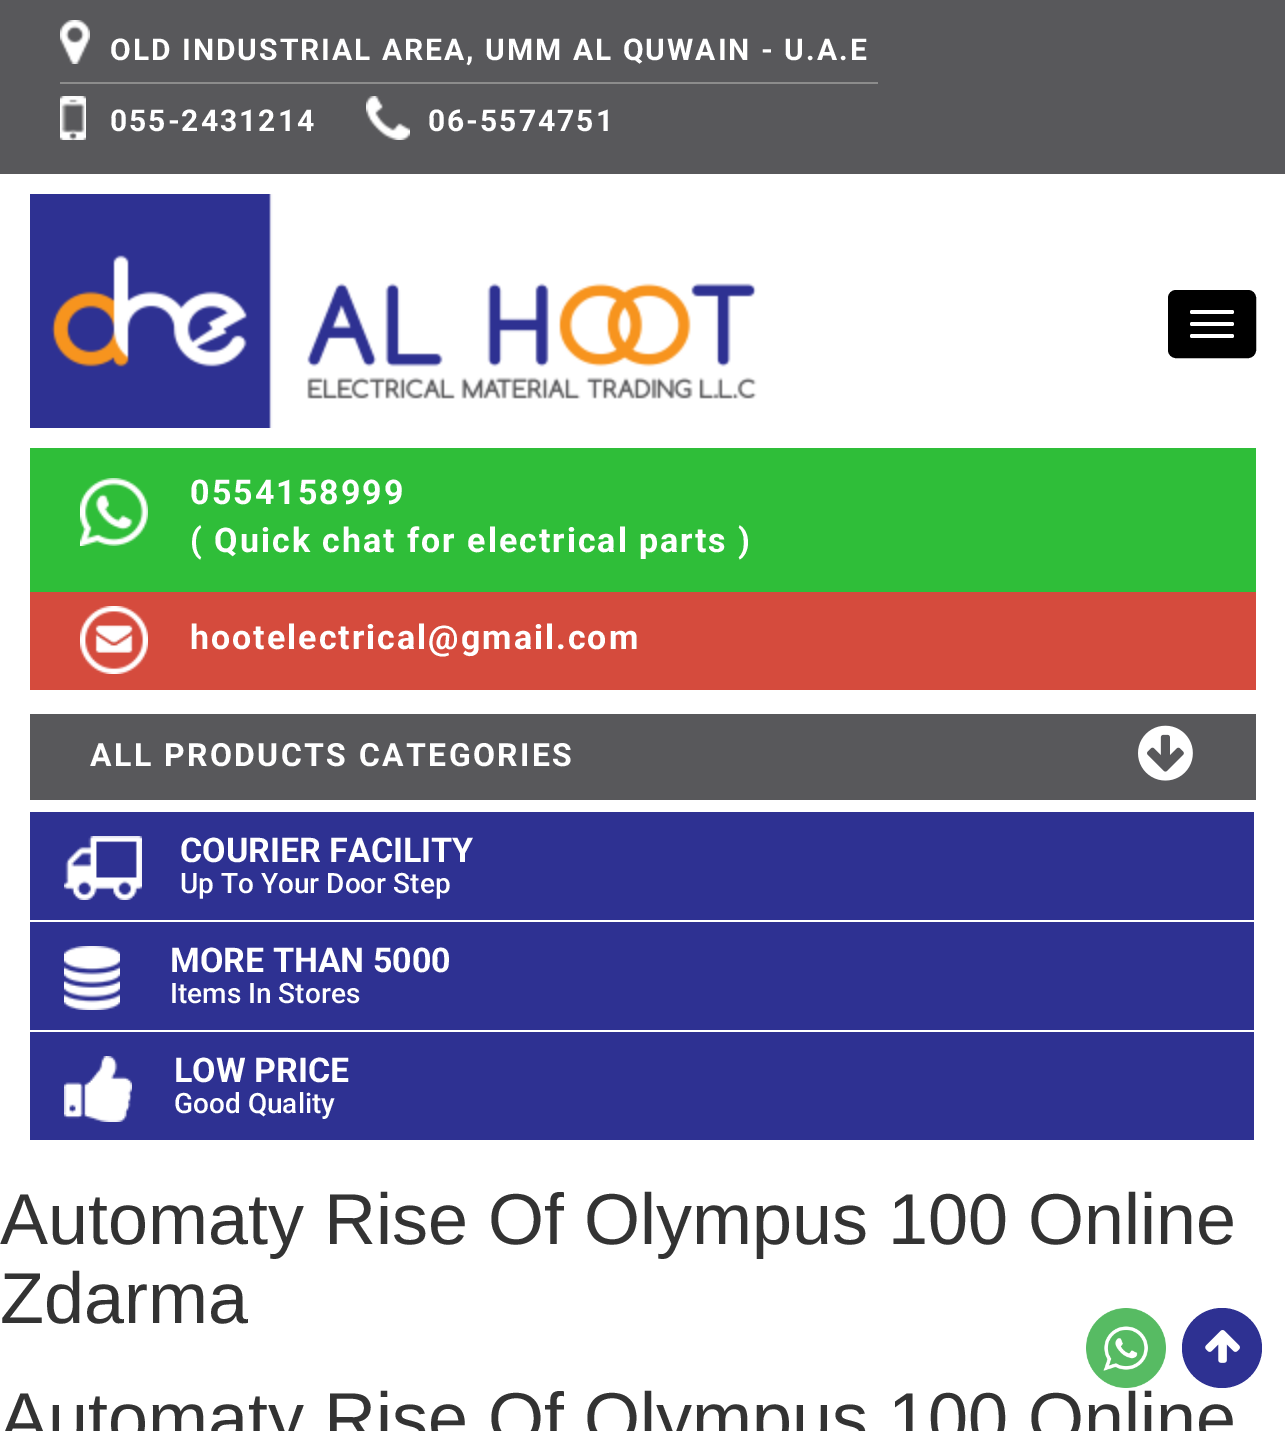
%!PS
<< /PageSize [1285 1431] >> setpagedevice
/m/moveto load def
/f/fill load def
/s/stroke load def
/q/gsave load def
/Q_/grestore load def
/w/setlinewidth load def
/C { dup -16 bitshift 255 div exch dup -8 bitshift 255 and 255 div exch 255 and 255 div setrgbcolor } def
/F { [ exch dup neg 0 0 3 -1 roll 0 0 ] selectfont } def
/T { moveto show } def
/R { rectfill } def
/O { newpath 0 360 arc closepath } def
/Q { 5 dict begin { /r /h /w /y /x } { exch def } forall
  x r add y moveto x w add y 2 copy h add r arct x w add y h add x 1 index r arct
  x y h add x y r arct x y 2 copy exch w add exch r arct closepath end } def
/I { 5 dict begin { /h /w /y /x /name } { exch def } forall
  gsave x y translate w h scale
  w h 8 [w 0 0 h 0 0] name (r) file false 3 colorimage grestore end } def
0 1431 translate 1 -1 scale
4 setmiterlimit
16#FFFFFF C
0 0 1285 1431 R
16#58585B C
0 0 1285 174 R
(1.rgb) 60 20 30 44 I
16#8C8C8C C
60 82 818 2 R
/Roboto-Bold 30 F
16#FFFFFF C
110 60 m 2 0 (OLD INDUSTRIAL AREA, UMM AL QUWAIN - U.A.E) ashow
(2.rgb) 60 96 26 44 I
110 131 m 2 0 (055-2431214) ashow
(3.rgb) 366 96 44 44 I
428 131 m 2 0 (06-5574751) ashow
(4.rgb) 30 194 727 234 I
16#2FBE39 C
30 448 1226 144 R
(5.rgb) 80 478 68 68 I
/Roboto-Bold 34 F
16#FFFFFF C
190 504 m 2 0 (0554158999) ashow
190 552 m 2 0 (\( Quick chat for electrical parts \)) ashow
16#D54B3D C
30 592 1226 98 R
(6.rgb) 80 606 68 68 I
16#FFFFFF C
190 649 m 2 0 (hootelectrical@gmail.com) ashow
16#000000 C
1169 291 86 66 7 Q q f Q_
2 w
s
16#FFFFFF C
1190 310 44 4 2 Q f
1190 322 44 4 2 Q f
1190 334 44 4 2 Q f
16#58585B C
30 714 1226 86 R
/Roboto-Bold 32 F
16#FFFFFF C
90 766 m 2.4 0 (ALL PRODUCTS CATEGORIES) ashow
(7.rgb) 1138 725 55 56 I
16#2E3192 C
30 812 1224 108 R
(8.rgb) 64 836 78 64 I
/Roboto-Bold 34 F
16#FFFFFF C
(COURIER FACILITY) 180 862 T
/Roboto-Medium 28 F
(Up To Your Door Step) 180 893 T
16#2E3192 C
30 922 1224 108 R
(9.rgb) 64 946 56 64 I
/Roboto-Bold 34 F
16#FFFFFF C
(MORE THAN 5000) 170 972 T
/Roboto-Medium 28 F
(Items In Stores) 170 1003 T
16#2E3192 C
30 1032 1224 108 R
(10.rgb) 64 1056 68 66 I
/Roboto-Bold 34 F
16#FFFFFF C
(LOW PRICE) 174 1082 T
/Roboto-Medium 28 F
(Good Quality) 174 1113 T
/LiberationSans-Regular 72 F
16#333333 C
(Automaty Rise Of Olympus 100 Online) 0 1244 T
(Zdarma) 0 1323 T
(11.rgb) 1086 1308 80 80 I
16#2E3192 C
1222 1348 40 O f
(12.rgb) 1205 1330 35 33 I
16#333333 C
(Automaty Rise Of Olympus 100 Online) 0 1443 T
showpage
